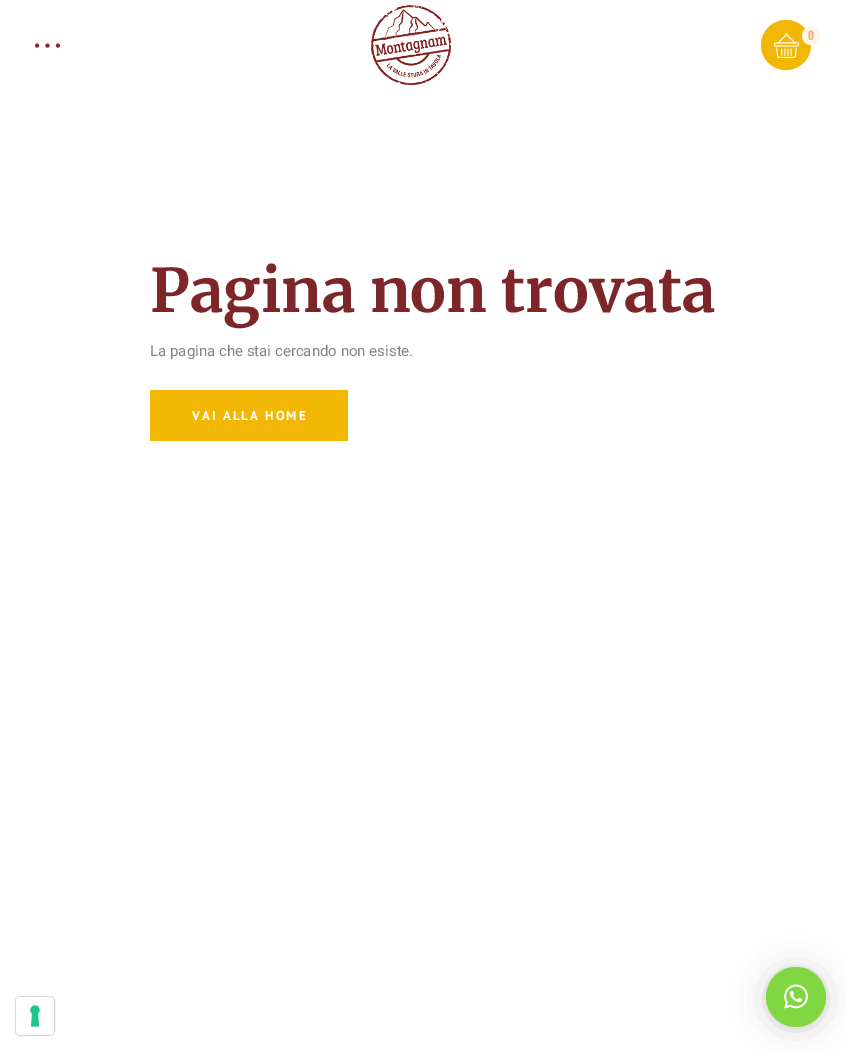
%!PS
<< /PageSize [846 1051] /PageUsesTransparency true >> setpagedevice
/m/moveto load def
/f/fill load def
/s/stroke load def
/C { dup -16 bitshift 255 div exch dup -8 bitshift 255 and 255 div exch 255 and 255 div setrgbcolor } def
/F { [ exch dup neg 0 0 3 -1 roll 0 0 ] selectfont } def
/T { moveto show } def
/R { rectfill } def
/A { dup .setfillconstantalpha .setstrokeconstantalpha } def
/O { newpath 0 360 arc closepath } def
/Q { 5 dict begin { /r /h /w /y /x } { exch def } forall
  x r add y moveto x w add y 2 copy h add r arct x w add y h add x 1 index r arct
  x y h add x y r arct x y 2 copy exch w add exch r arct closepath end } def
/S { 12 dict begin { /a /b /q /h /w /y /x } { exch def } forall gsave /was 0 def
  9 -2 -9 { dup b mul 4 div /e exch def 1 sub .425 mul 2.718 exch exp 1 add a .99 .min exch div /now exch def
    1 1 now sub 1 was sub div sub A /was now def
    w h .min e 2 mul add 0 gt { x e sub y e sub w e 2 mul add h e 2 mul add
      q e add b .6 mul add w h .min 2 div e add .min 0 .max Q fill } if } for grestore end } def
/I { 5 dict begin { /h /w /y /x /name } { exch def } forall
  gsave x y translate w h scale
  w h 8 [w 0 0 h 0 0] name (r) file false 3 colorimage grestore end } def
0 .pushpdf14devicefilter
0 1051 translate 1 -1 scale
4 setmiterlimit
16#FFFFFF C
0 0 846 1051 R
(1.rgb) 371 5 80 80 I
16#F2B705 C
786 45 25 O f
(2.rgb) 774 33 25 25 I
16#FFF7E6 C
811 36 9 O f
/FjallaOne-Bold 11 F
16#FFA27E C
(0) 808 40 T
(3.rgb) 35 43 25 5 I
/Merriweather-Bold 60 F
16#7C2629 C
(Pagina non trovata) 150 312 T
/Roboto-Regular 15 F
16#848484 C
(La pagina che stai cercando non esiste.) 150 356 T
16#F2B705 C
150 390 198 51 R
/PTSans-Bold 13 F
16#FFFFFF C
192 420 m 2 0 (VAI ALLA HOME) ashow
16#D9D9D9 C
15.5 996.5 39 39 4.5 Q s
16#FFFFFF C
16 997 38 38 4 Q f
(4.rgb) 30 1005 10 22 I
16#000000 C
766 969 60 60 30 16 .16 S
766 968 60 60 30 3 .06 S
16#81D742 C
796 997 30 O f
(5.rgb) 784 984 24 25 I
.poppdf14devicefilter showpage
